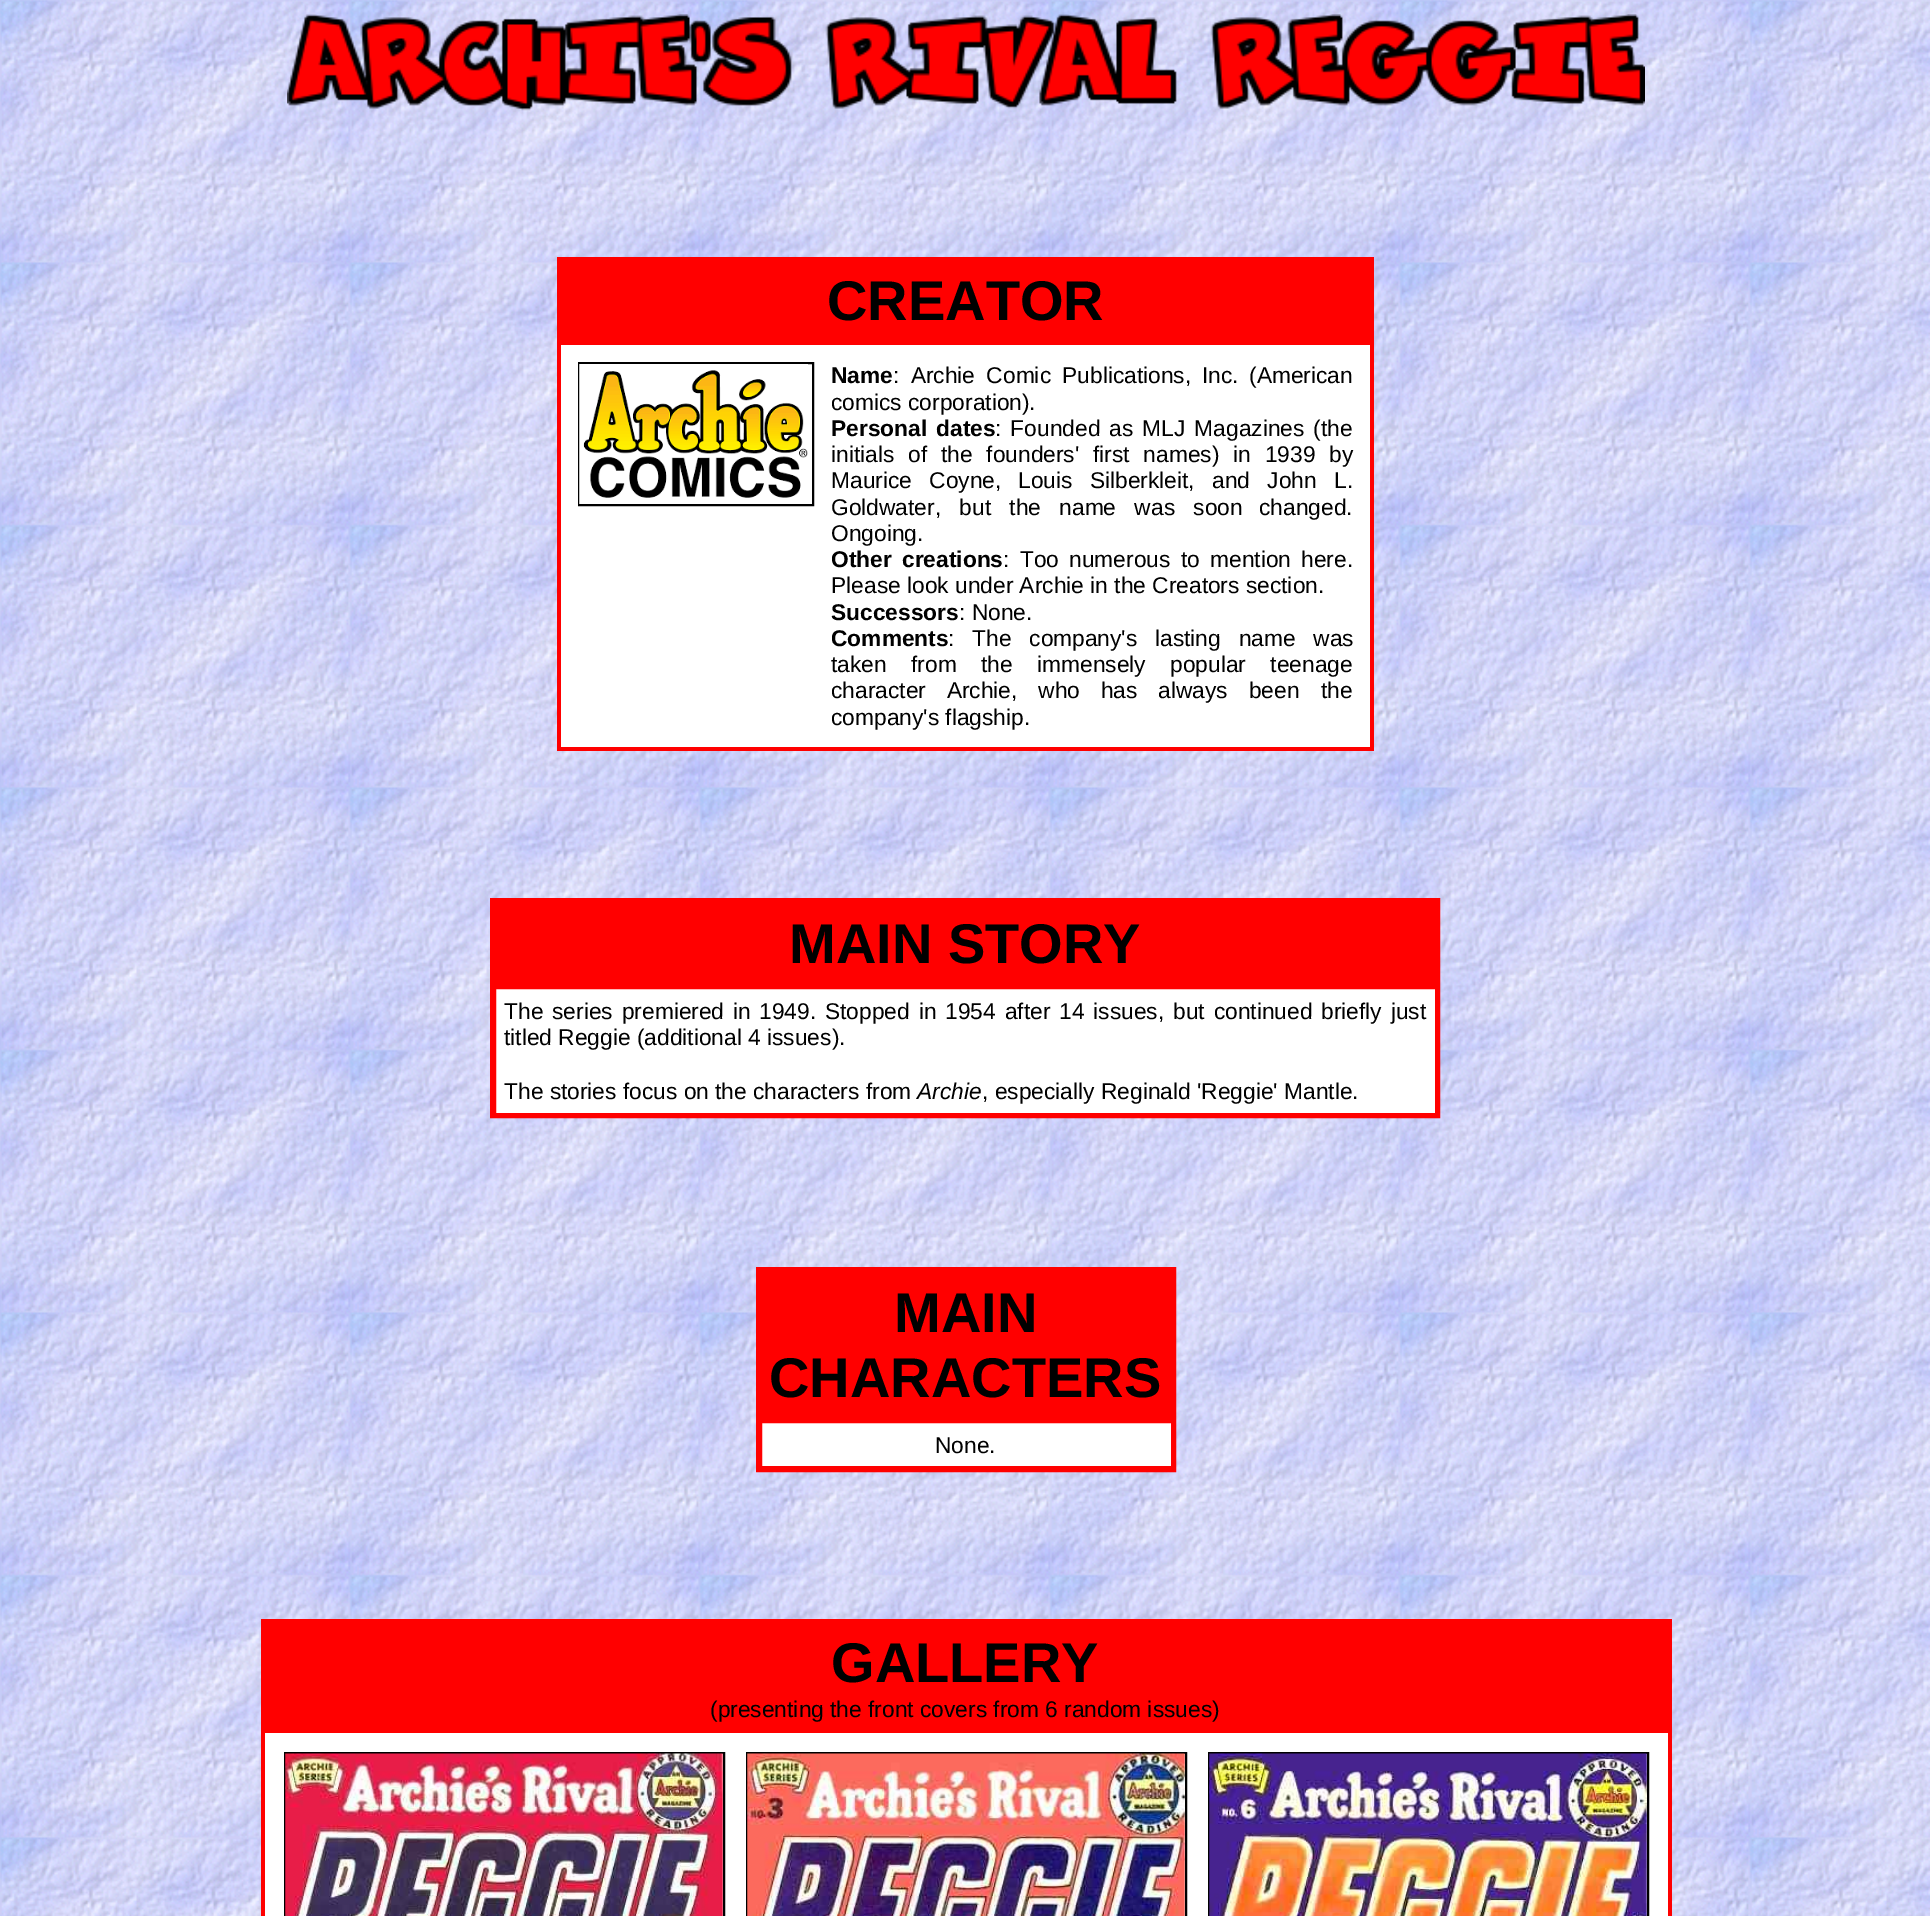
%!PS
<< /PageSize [1930 1916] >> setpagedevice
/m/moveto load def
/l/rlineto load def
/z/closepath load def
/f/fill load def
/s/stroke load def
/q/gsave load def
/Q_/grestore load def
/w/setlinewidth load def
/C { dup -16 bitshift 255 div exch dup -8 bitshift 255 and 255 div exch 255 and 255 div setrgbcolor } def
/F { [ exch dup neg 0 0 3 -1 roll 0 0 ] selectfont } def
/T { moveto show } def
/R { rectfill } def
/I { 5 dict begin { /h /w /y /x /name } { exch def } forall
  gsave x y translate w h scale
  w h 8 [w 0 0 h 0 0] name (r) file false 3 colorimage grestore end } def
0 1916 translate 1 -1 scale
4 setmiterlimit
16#FFFFFF C
0 0 1930 1916 R
(1.rgb) 0 0 1930 1916 I
(2.rgb) 287 14 1358 97 I
16#FF0000 C
557 257 817 4 R
557 343 817 2 R
1370 257 4 494 R
557 747 817 4 R
557 257 4 494 R
561 261 809 82 R
/LiberationSans-Bold 56 F
16#000000 C
(CREATOR) 827 320 T
16#FFFFFF C
561 345 809 402 R
16#000000 C
2 w
579 363 234 142 rectstroke
(3.rgb) 579 364 229 140 I
/LiberationSans-Bold 22.75 F
(Name) 831 383 T
/LiberationSans-Regular 22.75 F
893 383 m 5 0 32 (: Archie Comic Publications,) widthshow
(Inc.) 1202 383 T
(\(American) 1249 383 T
(comics corporation\).) 831 410 T
/LiberationSans-Bold 22.75 F
831 436 m 2.75 0 32 (Personal dates) widthshow
/LiberationSans-Regular 22.75 F
995 436 m 2.75 0 32 (: Founded as MLJ Magazines \(the) widthshow
831 462 m 7.5 0 32 (initials of the founders' first names\) in 1939 by) widthshow
831 488 m 11 0 32 (Maurice Coyne,) widthshow
1018 488 m 11 0 32 (Louis Silberkleit, and John L.) widthshow
831 515 m 12 0 32 (Goldwater, but the name was soon) widthshow
(changed.) 1259 515 T
(Ongoing.) 831 541 T
/LiberationSans-Bold 22.75 F
831 567 m 4 0 32 (Other creations) widthshow
/LiberationSans-Regular 22.75 F
1003 567 m 4 0 32 (: Too numerous to mention here.) widthshow
(Please look under Archie in the Creators section.) 831 593 T
/LiberationSans-Bold 22.75 F
(Successors) 831 620 T
/LiberationSans-Regular 22.75 F
(: None.) 959 620 T
/LiberationSans-Bold 22.75 F
(Comments) 831 646 T
/LiberationSans-Regular 22.75 F
948 646 m 11.5 0 32 (: The company's lasting name was) widthshow
831 672 m 18 0 32 (taken from the) widthshow
1037 672 m 18 0 32 (immensely popular teenage) widthshow
831 698 m 14.5 0 32 (character Archie, who has always been) widthshow
(the) 1321 698 T
(company's flagship.) 831 725 T
16#FF0000 C
4 w
492 900 946 216 rectstroke
494 902 942 85 R
/LiberationSans-Bold 56 F
16#000000 C
(MAIN STORY) 789 963 T
16#FFFFFF C
495 988 m 941 0 l 0 126 l -941 0 l z q f Q_
16#FF0000 C
2 w
s
/LiberationSans-Regular 22.75 F
16#000000 C
504 1019 m 2.6 0 32 (The series premiered in) widthshow
759 1019 m 2.6 0 32 (1949. Stopped in 1954 after 14 issues, but continued briefly just) widthshow
(titled Reggie \(additional 4 issues\).) 504 1045 T
(The stories focus on the characters from) 504 1099 T
/LiberationSans-Italic 22.75 F
(Archie) 917 1099 T
/LiberationSans-Regular 22.75 F
(, especially Reginald 'Reggie' Mantle.) 982 1099 T
16#FF0000 C
4 w
758 1269 416 201 rectstroke
760 1271 412 150 R
/LiberationSans-Bold 56 F
16#000000 C
(MAIN) 894 1332 T
(CHARACTERS) 769 1397 T
16#FFFFFF C
761 1422 m 411 0 l 0 45 l -411 0 l z q f Q_
16#FF0000 C
2 w
s
/LiberationSans-Regular 22.75 F
16#000000 C
(None.) 935 1453 T
16#FF0000 C
261 1619 1410 4 R
261 1731 1409 2 R
1668 1619 4 297 R
261 1619 4 297 R
265 1623 1403 108 R
/LiberationSans-Bold 56 F
16#000000 C
(GALLERY) 831 1682 T
/LiberationSans-Regular 22.75 F
(\(presenting the front covers from 6 random issues\)) 710 1717 T
16#FFFFFF C
265 1733 1403 183 R
16#000000 C
285 1753 439 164 rectstroke
(4.rgb) 285 1753 438 163 I
747 1753 439 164 rectstroke
(5.rgb) 747 1753 438 163 I
1209 1753 439 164 rectstroke
(6.rgb) 1209 1753 438 163 I
showpage
